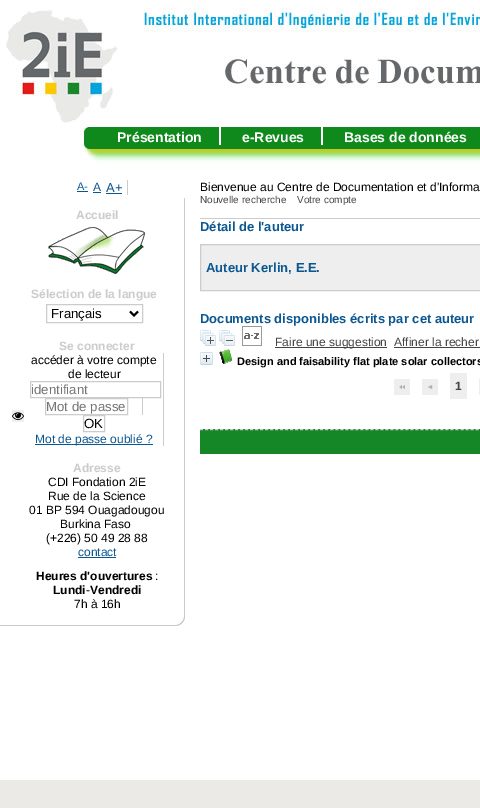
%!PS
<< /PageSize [480 808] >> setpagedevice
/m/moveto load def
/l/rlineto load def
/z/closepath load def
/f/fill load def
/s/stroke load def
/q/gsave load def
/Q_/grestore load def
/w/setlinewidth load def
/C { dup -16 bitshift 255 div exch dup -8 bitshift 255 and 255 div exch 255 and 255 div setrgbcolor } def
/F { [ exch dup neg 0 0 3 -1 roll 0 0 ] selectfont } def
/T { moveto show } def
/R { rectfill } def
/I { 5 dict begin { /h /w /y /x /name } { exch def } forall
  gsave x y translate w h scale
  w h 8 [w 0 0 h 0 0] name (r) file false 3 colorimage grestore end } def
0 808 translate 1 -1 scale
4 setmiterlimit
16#EBEAE6 C
0 0 480 808 R
16#FFFFFF C
0 0 480 780 R
(1.rgb) 0 611 185 15 I
16#CCCCCC C
127 180 1 15 R
/LiberationSans-Regular 11 F
16#0B5791 C
(A-) 77 190 T
77 191 11 1 R
/LiberationSans-Regular 12 F
(A) 93 191 T
93 192 8 1 R
/LiberationSans-Regular 13 F
(A+) 106 192 T
106 193 16 1 R
16#CCCCCC C
184 198 1 413 R
/LiberationSans-Bold 12 F
(Accueil) 76 219 T
(2.rgb) 48 227 97 47 I
(Sélection de la langue) 31 298 T
46.5 304.5 96 18 rectstroke
16#000000 C
2 w
130 311.5 m 4 4 l 4 -4 l s
/LiberationSans-Regular 13.25 F
(Français) 51 318 T
/LiberationSans-Bold 12 F
16#CCCCCC C
(Se connecter) 59 350 T
163 353 1 93 R
/LiberationSans-Regular 12 F
16#000000 C
(accéder à votre compte) 31 364 T
(de lecteur) 68 378 T
16#CCCCCC C
1 w
30.5 381.5 130 16 rectstroke
/LiberationSans-Regular 13.25 F
16#757575 C
(identifiant) 31 394 T
16#CCCCCC C
142 398 1 17 R
45.5 398.5 82 16 rectstroke
16#757575 C
(Mot de passe) 46 411 T
16#EFEFEF C
12 410 12 12 R
(3.rgb) 12 412 12 8 I
16#CCCCCC C
83.5 415.5 21 16 rectstroke
16#000000 C
(OK) 84 428 T
16#0B5791 C
35 444 118 1 R
/LiberationSans-Regular 12 F
(Mot de passe oublié ?) 35 443 T
/LiberationSans-Bold 12 F
16#CCCCCC C
(Adresse) 73 472 T
/LiberationSans-Regular 12 F
16#000000 C
(CDI Fondation 2iE) 48 486 T
(Rue de la Science) 48 500 T
(01 BP 594 Ouagadougou) 29 514 T
(Burkina Faso) 60 528 T
(\(+226\) 50 49 28 88) 46 542 T
16#0B5791 C
(contact) 78 556 T
78 557 38 1 R
/LiberationSans-Bold 12 F
16#000000 C
(Heures d'ouvertures) 36 580 T
/LiberationSans-Regular 12 F
(:) 155 580 T
/LiberationSans-Bold 12 F
(Lundi) 53 594 T
/LiberationSans-Regular 12 F
(-) 86 594 T
/LiberationSans-Bold 12 F
(Vendredi) 90 594 T
/LiberationSans-Regular 12 F
(7h à 16h) 74 608 T
(4.rgb) 6 8 474 155 I
/LiberationSans-Bold 14 F
16#FFFFFF C
(Présentation) 117 142 T
219 126 2 19 R
(e-Revues) 242 142 T
321 126 2 19 R
(Bases de données) 344 142 T
16#CCCCCC C
200 218 280 1 R
/LiberationSans-Regular 10 F
16#444444 C
(Nouvelle recherche) 200 203 T
(Votre compte) 297 203 T
/LiberationSans-Bold 13 F
16#0B5791 C
(Détail de l'auteur) 200 231 T
16#EEEEEE C
200.5 244.5 m 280 0 l 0 46 l -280 0 l z q f Q_
16#CCCCCC C
s
16#0B5791 C
(Auteur Kerlin, E.E.) 206 272 T
(Documents disponibles écrits par cet auteur) 200 323 T
(5.rgb) 200 330 16 16 I
(6.rgb) 219 330 16 16 I
(7.rgb) 242 326 20 20 I
16#444444 C
275 347 112 1 R
/LiberationSans-Regular 12 F
(Faire une suggestion) 275 346 T
(Affiner la recher) 394 346 T
394 347 86 1 R
(8.rgb) 200 352 13 13 I
(9.rgb) 219 349 13 15 I
/LiberationSans-Bold 11 F
16#000000 C
(Design and faisability flat plate solar collectors) 237 365 T
16#EEEEEE C
394 379 16 16 R
(10.rgb) 399 385 6 5 I
422 379 16 16 R
(11.rgb) 428 385 5 5 I
450 373 17 26 R
/LiberationSans-Bold 12 F
16#444444 C
(1) 455 390 T
16#EEEEEE C
479 379 1 16 R
/LiberationSans-Regular 12 F
16#000000 C
(Bienvenue au Centre de Documentation et d'Informa) 200 191 T
16#158727 C
200 429 280 25 R
16#CCCCCC C
[3 2.01] 0 setdash
200 429.5 m 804 0 l s
showpage
